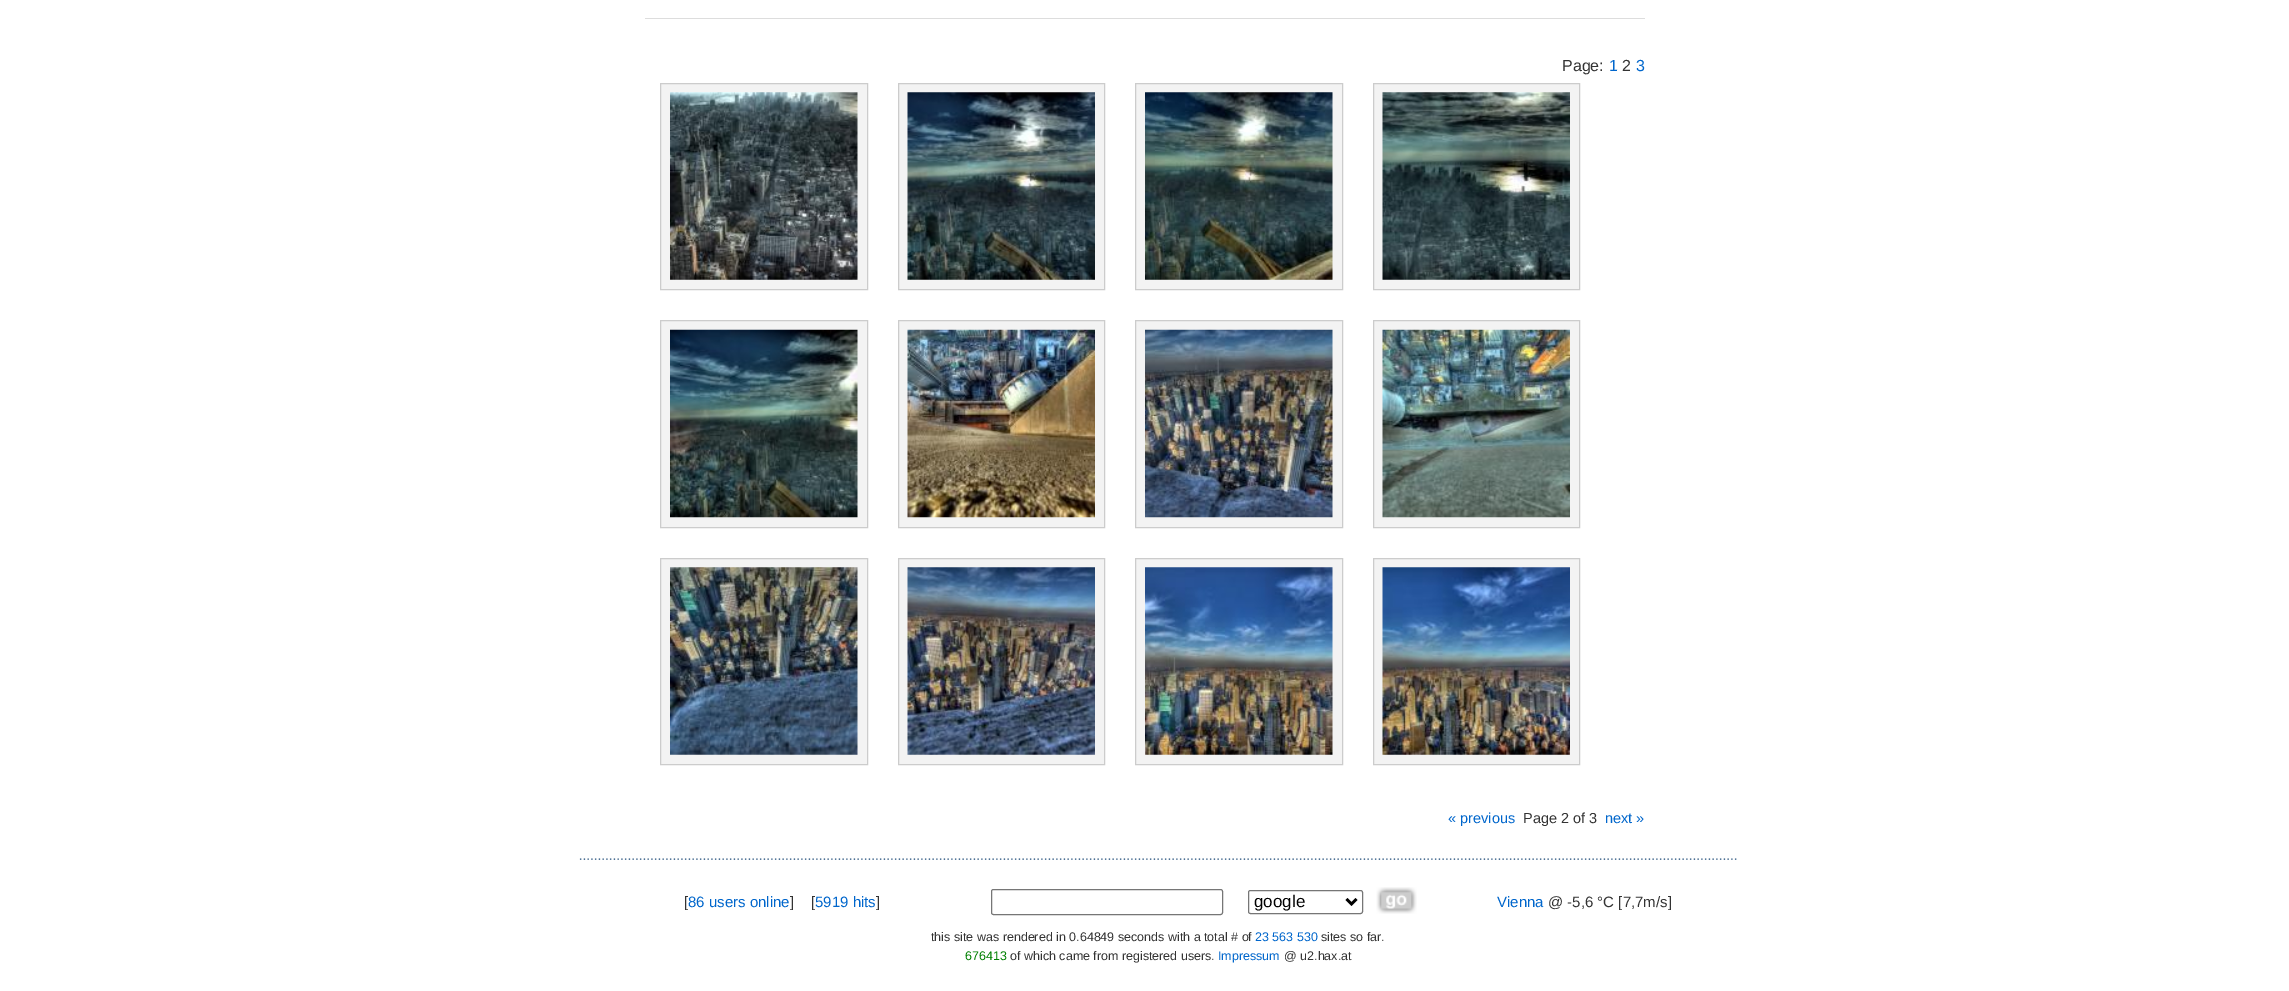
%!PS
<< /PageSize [2289 991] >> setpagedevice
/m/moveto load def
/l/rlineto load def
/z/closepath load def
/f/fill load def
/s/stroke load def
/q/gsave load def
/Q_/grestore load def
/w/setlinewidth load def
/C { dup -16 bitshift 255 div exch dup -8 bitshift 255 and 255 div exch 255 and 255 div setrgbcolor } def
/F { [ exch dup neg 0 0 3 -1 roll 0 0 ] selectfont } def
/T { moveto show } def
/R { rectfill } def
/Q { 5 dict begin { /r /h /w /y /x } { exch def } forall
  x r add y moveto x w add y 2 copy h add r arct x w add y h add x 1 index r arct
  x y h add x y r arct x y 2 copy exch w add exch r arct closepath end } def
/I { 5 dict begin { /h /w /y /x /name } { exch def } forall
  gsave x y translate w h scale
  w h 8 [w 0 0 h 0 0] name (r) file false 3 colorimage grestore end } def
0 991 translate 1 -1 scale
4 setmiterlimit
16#FFFFFF C
0 0 2289 991 R
16#DDDDDD C
645 18 1000 1 R
/LiberationSans-Regular 16 F
16#333333 C
(Page:) 1562 71 T
16#0066CC C
(1) 1609 71 T
16#333333 C
(2) 1622 71 T
16#0066CC C
(3) 1636 71 T
16#F3F3F3 C
660.5 83.5 m 207 0 l 0 206 l -207 0 l z q f Q_
16#CCCCCC C
s
(1.rgb) 670 92 188 188 I
16#F3F3F3 C
898.5 83.5 m 206 0 l 0 206 l -206 0 l z q f Q_
16#CCCCCC C
s
(2.rgb) 907 92 188 188 I
16#F3F3F3 C
1135.5 83.5 m 207 0 l 0 206 l -207 0 l z q f Q_
16#CCCCCC C
s
(3.rgb) 1145 92 188 188 I
16#F3F3F3 C
1373.5 83.5 m 206 0 l 0 206 l -206 0 l z q f Q_
16#CCCCCC C
s
(4.rgb) 1382 92 188 188 I
16#F3F3F3 C
660.5 320.5 m 207 0 l 0 207 l -207 0 l z q f Q_
16#CCCCCC C
s
(5.rgb) 670 329 188 189 I
16#F3F3F3 C
898.5 320.5 m 206 0 l 0 207 l -206 0 l z q f Q_
16#CCCCCC C
s
(6.rgb) 907 329 188 189 I
16#F3F3F3 C
1135.5 320.5 m 207 0 l 0 207 l -207 0 l z q f Q_
16#CCCCCC C
s
(7.rgb) 1145 329 188 189 I
16#F3F3F3 C
1373.5 320.5 m 206 0 l 0 207 l -206 0 l z q f Q_
16#CCCCCC C
s
(8.rgb) 1382 329 188 189 I
16#F3F3F3 C
660.5 558.5 m 207 0 l 0 206 l -207 0 l z q f Q_
16#CCCCCC C
s
(9.rgb) 670 567 188 188 I
16#F3F3F3 C
898.5 558.5 m 206 0 l 0 206 l -206 0 l z q f Q_
16#CCCCCC C
s
(10.rgb) 907 567 188 188 I
16#F3F3F3 C
1135.5 558.5 m 207 0 l 0 206 l -207 0 l z q f Q_
16#CCCCCC C
s
(11.rgb) 1145 567 188 188 I
16#F3F3F3 C
1373.5 558.5 m 206 0 l 0 206 l -206 0 l z q f Q_
16#CCCCCC C
s
(12.rgb) 1382 567 188 188 I
/LiberationSans-Regular 14.5 F
16#0066CC C
(« previous) 1448 823 T
16#333333 C
(Page 2 of 3) 1523 823 T
16#0066CC C
(next ») 1605 823 T
(13.rgb) 579 858 1158 2 I
/LiberationSans-Regular 15 F
16#333333 C
([) 684 907 T
16#0066CC C
(86 users online) 688 907 T
16#333333 C
(]    [) 790 907 T
16#0066CC C
(5919 hits) 815 907 T
16#333333 C
(]) 876 907 T
16#767676 C
991.5 889.5 231 25 2 Q s
1248.5 890.5 114 23 2 Q s
16#000000 C
2.5 w
1346.5 899 m 5 5 l 5 -5 l s
/LiberationSans-Regular 17 F
(google) 1254 907 T
(14.rgb) 1376 887 41 27 I
/LiberationSans-Regular 15 F
16#0066CC C
(Vienna) 1497 907 T
16#333333 C
(@ -5,6 °C [7,7m/s]) 1548 907 T
/LiberationSans-Regular 12.5 F
(this site was rendered in 0.64849 seconds with a total # of) 931 941 T
16#0066CC C
(23 563 530) 1255 941 T
16#333333 C
(sites so far.) 1321 941 T
16#008000 C
(676413) 965 960 T
16#333333 C
(of which came from registered users.) 1010 960 T
16#0066CC C
(Impressum) 1218 960 T
16#333333 C
(@ u2.hax.at) 1284 960 T
showpage
